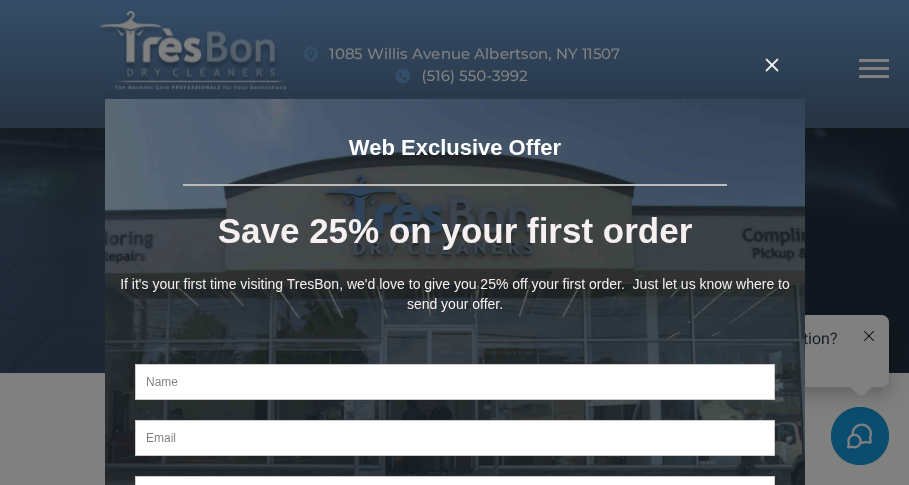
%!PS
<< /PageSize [909 485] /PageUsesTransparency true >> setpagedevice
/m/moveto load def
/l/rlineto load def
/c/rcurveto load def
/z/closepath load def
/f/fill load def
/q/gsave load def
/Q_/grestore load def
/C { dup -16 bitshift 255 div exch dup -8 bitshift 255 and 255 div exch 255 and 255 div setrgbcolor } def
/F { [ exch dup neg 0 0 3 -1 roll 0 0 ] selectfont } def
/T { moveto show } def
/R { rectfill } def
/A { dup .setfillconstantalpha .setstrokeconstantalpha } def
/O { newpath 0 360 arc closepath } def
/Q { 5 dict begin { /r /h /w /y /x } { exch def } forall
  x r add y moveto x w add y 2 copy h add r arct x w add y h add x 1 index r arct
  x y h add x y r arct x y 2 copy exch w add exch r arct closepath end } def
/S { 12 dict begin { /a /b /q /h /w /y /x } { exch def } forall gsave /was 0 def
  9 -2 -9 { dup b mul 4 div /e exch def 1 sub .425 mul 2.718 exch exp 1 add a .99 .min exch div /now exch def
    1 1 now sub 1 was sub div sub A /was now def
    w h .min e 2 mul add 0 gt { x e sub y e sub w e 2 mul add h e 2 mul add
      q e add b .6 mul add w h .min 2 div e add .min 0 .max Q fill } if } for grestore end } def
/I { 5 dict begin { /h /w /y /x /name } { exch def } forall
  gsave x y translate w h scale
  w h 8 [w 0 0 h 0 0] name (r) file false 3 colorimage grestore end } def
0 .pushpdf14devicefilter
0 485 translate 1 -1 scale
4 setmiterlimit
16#808080 C
0 0 909 485 R
(4.rgb) 0 128 909 245 I
16#000000 C
0 4 909 128 0 2 .1 S
q 0 0 m 909 0 l 0 128 l -909 0 l z clip newpath
<< /ShadingType 2 /ColorSpace /DeviceRGB /Coords [455 0 455 128] /Extend [true true] /Function << /FunctionType 2 /Domain [0 1] /C0 [.208 .306 .408] /C1 [.153 .204 .267] /N 1 >> >> shfill Q_
(1.rgb) 100 11 186 79 I
(2.rgb) 303 46 16 16 I
/Montserrat-Medium 15 F
16#808080 C
(1085 Willis Avenue Albertson, NY 11507) 329 59 T
(3.rgb) 395 68 16 16 I
(\(516\) 550-3992) 421 81 T
859 59 30 3 R
859 67 30 3 R
859 75 30 3 R
16#0A4D6F C
860 436 29 O f
(7.rgb) 847 423 25 26 I
16#000000 C
588 323 301 72 8 10 .24 S
16#808080 C
588 315 301 72 8 Q f
/Roboto-Regular 16 F
16#1A202A C
(tion?) 803 344 T
(5.rgb) 105 58 700 427 I
16#808080 C
864 371.5 m 8.5 8.5 l 1.5 1.5 1.5 4.5 0 6 c -8.5 8.5 l -1.5 1.5 -4.5 1.5 -6 0 c -8.5 -8.5 l -1.5 -1.5 -1.5 -4.5 0 -6 c 8.5 -8.5 l 1.5 -1.5 4.5 -1.5 6 0 c z f
(6.rgb) 864 331 10 10 I
.poppdf14devicefilter showpage
